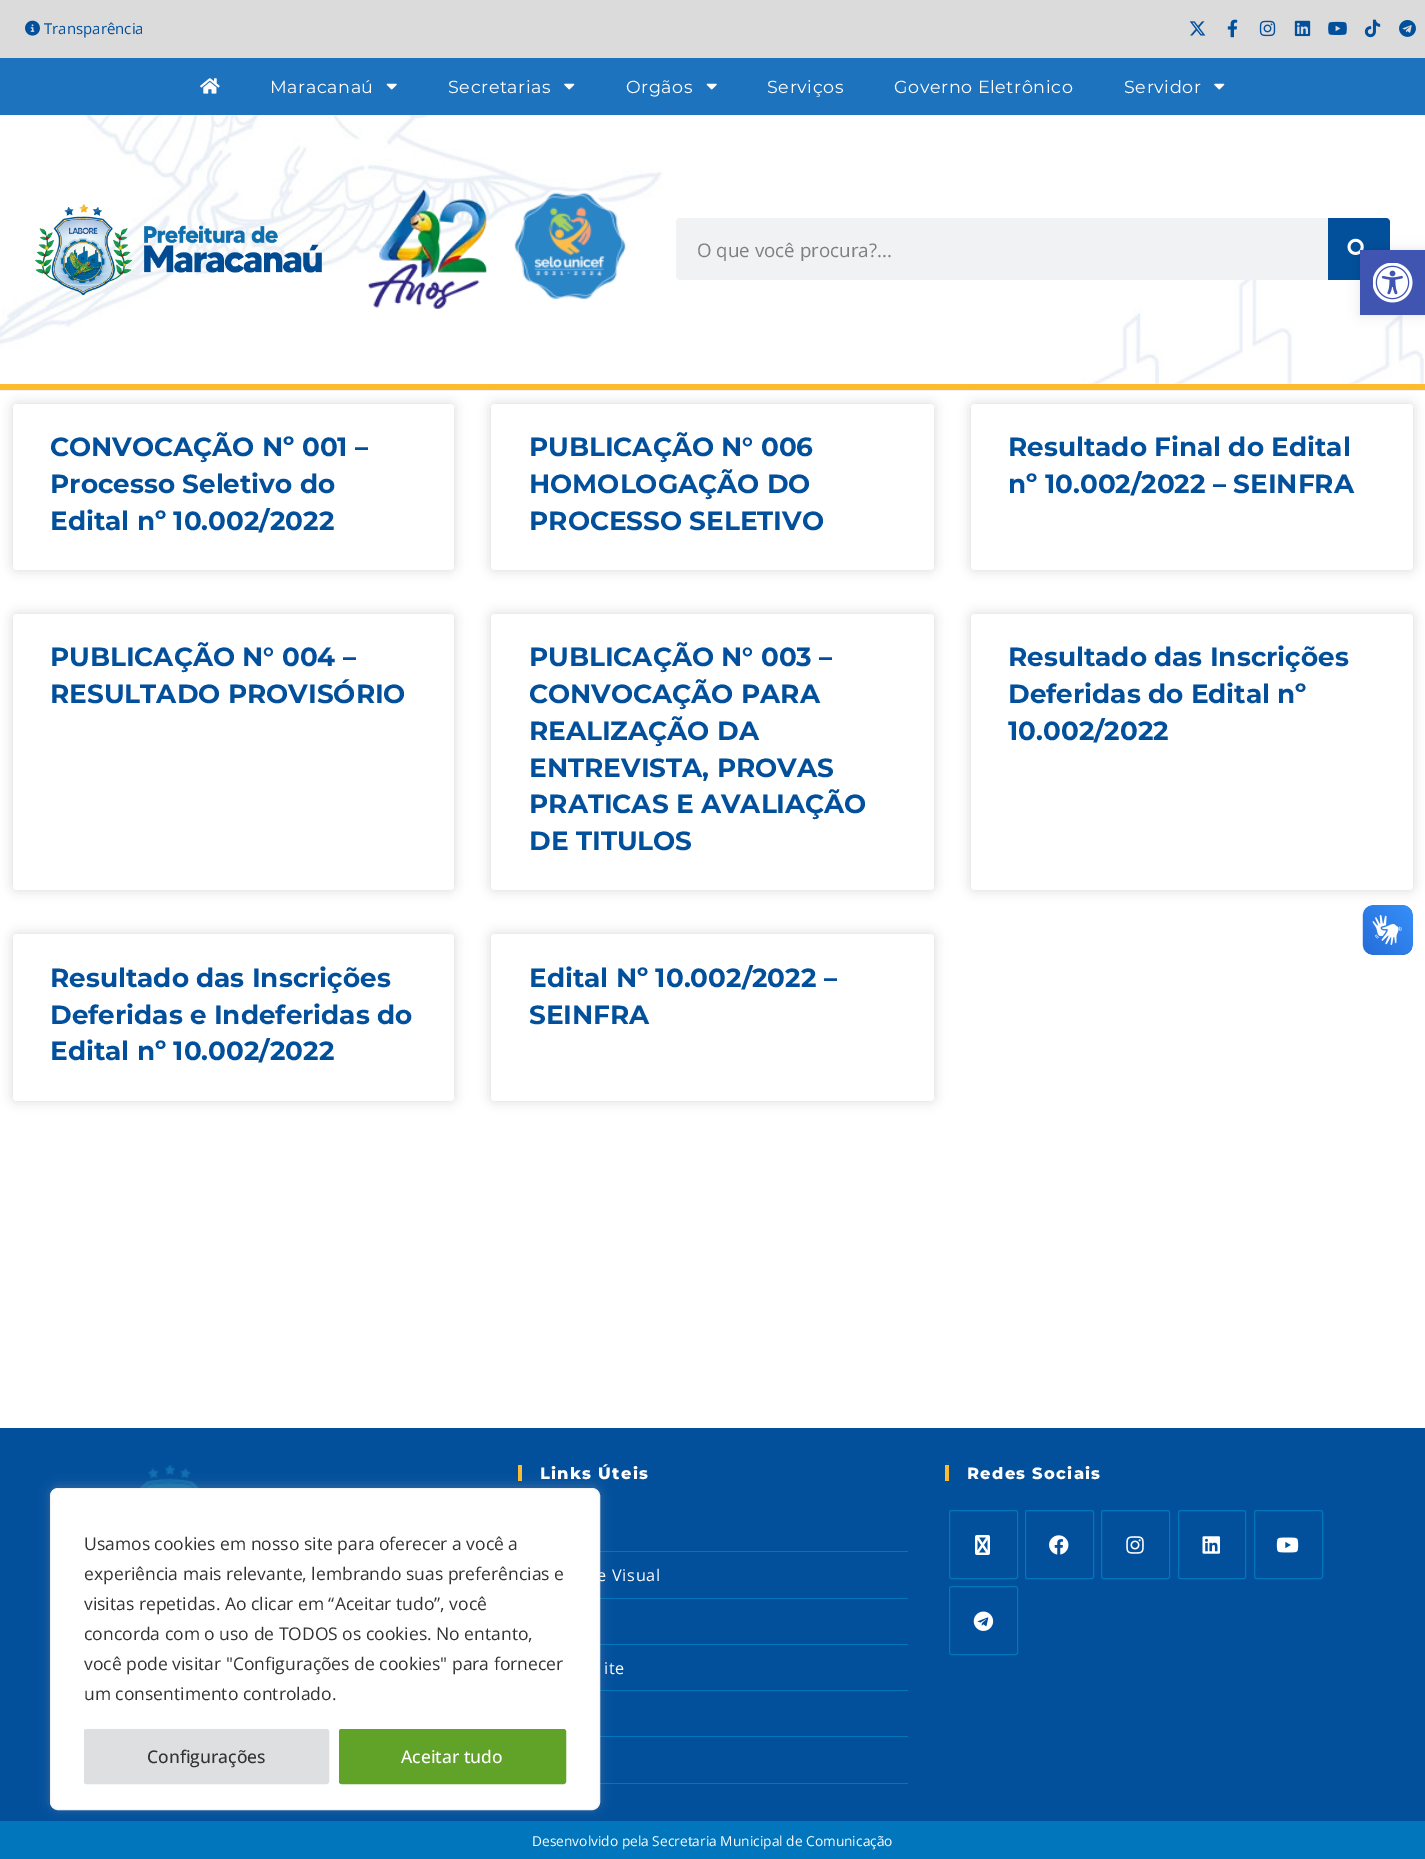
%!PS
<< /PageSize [1425 1859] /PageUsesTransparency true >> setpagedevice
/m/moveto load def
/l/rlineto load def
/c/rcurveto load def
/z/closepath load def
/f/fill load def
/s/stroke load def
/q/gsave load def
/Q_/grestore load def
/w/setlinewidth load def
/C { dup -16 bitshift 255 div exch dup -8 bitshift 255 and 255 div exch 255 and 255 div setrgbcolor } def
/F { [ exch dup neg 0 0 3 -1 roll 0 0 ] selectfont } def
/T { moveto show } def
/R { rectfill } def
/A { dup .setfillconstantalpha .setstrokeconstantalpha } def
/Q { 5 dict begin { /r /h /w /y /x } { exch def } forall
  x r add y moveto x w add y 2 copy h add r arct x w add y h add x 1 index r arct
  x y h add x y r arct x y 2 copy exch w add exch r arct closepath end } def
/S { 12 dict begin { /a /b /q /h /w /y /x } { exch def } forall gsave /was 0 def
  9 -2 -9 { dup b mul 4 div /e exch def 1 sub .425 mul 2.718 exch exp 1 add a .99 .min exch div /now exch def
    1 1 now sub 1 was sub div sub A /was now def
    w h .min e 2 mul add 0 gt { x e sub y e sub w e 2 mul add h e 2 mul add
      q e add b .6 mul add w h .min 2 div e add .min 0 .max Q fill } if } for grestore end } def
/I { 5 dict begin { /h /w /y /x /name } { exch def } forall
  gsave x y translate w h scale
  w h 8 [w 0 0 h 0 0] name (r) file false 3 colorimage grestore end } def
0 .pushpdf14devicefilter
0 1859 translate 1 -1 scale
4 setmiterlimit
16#FFFFFF C
0 0 1425 1859 R
16#000000 C
13 404 441 166 4 6 .15 S
491 404 443 166 4 6 .15 S
971 404 442 166 4 6 .15 S
16#F1F1F1 C
0 390 1425 1 R
16#DBDBDB C
0 0 1425 58 R
(1.rgb) 25 20 15 16 I
/OpenSans-Regular 15 F
16#024F9C C
(Transparência) 44 34 T
(2.rgb) 1189 21 17 15 I
(3.rgb) 1227 19 11 19 I
(4.rgb) 1259 20 17 17 I
(5.rgb) 1294 20 17 17 I
(6.rgb) 1328 21 19 14 I
(7.rgb) 1364 19 17 19 I
(8.rgb) 1399 20 17 17 I
16#1E73BE C
0 58 1425 57 R
(9.rgb) 200 78 20 16 I
/Montserrat-Regular 17.5 F
16#FFFFFF C
270 93 m .6 0 (Maracanaú) ashow
(10.rgb) 386 83 11 7 I
448 93 m .6 0 (Secretarias) ashow
(11.rgb) 564 83 11 7 I
626 93 m .6 0 (Orgãos) ashow
(10.rgb) 706 83 11 7 I
767 93 m .6 0 (Serviços) ashow
894 93 m .6 0 (Governo Eletrônico) ashow
1124 93 m .6 0 (Servidor) ashow
(11.rgb) 1214 83 11 7 I
16#FDBB2D C
0 384 1425 6 R
(12.rgb) 0 115 1424 269 I
(13.rgb) 35 203 287 92 I
(14.rgb) 368 190 119 119 I
(15.rgb) 514 190 112 110 I
16#F1F2F3 C
676 218 714 62 4 Q f
q
698 236 608 25 rectclip
/OpenSans-Regular 18.75 F
16#7F7F80 C
(O que você procura?...) 697 257 T
Q_
16#024F9C C
1328 218 m 58 0 l 2 0 4 2 4 4 c 0 54 l 0 2 -2 4 -4 4 c -58 0 l z f
(16.rgb) 1347 238 17 17 I
16#FFFFFF C
13 404 441 166 4 Q f
/Montserrat-Bold 26.25 F
16#024F9C C
(CONVOCAÇÃO Nº 001 –) 50 456 T
(Processo Seletivo do) 50 493 T
(Edital nº 10.002/2022) 50 530 T
16#FFFFFF C
491 404 443 166 4 Q f
16#024F9C C
(PUBLICAÇÃO N° 006) 529 456 T
(HOMOLOGAÇÃO DO) 529 493 T
(PROCESSO SELETIVO) 529 530 T
16#FFFFFF C
971 404 442 166 4 Q f
16#024F9C C
(Resultado Final do Edital) 1008 456 T
(nº 10.002/2022 – SEINFRA) 1008 493 T
16#000000 C
13 614 441 276 4 6 .15 S
16#FFFFFF C
13 614 441 276 4 Q f
16#024F9C C
(PUBLICAÇÃO N° 004 –) 50 666 T
(RESULTADO PROVISÓRIO) 50 703 T
16#000000 C
491 614 443 276 4 6 .15 S
16#FFFFFF C
491 614 443 276 4 Q f
16#024F9C C
(PUBLICAÇÃO N° 003 –) 529 666 T
(CONVOCAÇÃO PARA) 529 703 T
(REALIZAÇÃO DA) 529 740 T
(ENTREVISTA, PROVAS) 529 777 T
(PRATICAS E AVALIAÇÃO) 529 813 T
(DE TITULOS) 529 850 T
16#000000 C
971 614 442 276 4 6 .15 S
16#FFFFFF C
971 614 442 276 4 Q f
16#024F9C C
(Resultado das Inscrições) 1008 666 T
(Deferidas do Edital nº) 1008 703 T
(10.002/2022) 1008 740 T
16#000000 C
13 934 441 167 4 6 .15 S
16#FFFFFF C
13 934 441 167 4 Q f
16#024F9C C
(Resultado das Inscrições) 50 987 T
(Deferidas e Indeferidas do) 50 1024 T
(Edital nº 10.002/2022) 50 1060 T
16#000000 C
491 934 443 167 4 6 .15 S
16#FFFFFF C
491 934 443 167 4 Q f
16#024F9C C
(Edital Nº 10.002/2022 –) 529 987 T
(SEINFRA) 529 1024 T
0 1428 1425 393 R
(17.rgb) 138 1465 62 23 I
16#FDBB2D C
518 1465 4 16 R
/Montserrat-ExtraBold 16.25 F
16#FFFFFF C
540 1479 m 1.25 0 (Links Úteis) ashow
16#0176BC C
600 1551 308 1 R
600 1598 308 1 R
/OpenSans-Regular 16.25 F
16#FFFFFF C
597 1581 m .75 0 (e Visual) ashow
16#0176BC C
600 1644 308 1 R
600 1690 308 1 R
16#FFFFFF C
604 1674 m .75 0 (ite) ashow
16#0176BC C
600 1736 308 1 R
600 1783 308 1 R
16#FDBB2D C
945 1465 4 16 R
/Montserrat-ExtraBold 16.25 F
16#FFFFFF C
967 1479 m 1.25 0 (Redes Sociais) ashow
16#0176BC C
949.5 1510.5 68 68 2 Q s
(18.rgb) 975 1535 15 20 I
1025.5 1510.5 68 68 2 Q s
(19.rgb) 1049 1535 20 20 I
1101.5 1510.5 68 68 2 Q s
(20.rgb) 1126 1536 18 18 I
1178.5 1510.5 67 68 2 Q s
(21.rgb) 1202 1536 18 18 I
1254.5 1510.5 68 68 2 Q s
(22.rgb) 1276 1537 23 16 I
949.5 1586.5 68 68 2 Q s
(23.rgb) 973 1611 21 20 I
0 1821 1425 38 R
/OpenSans-Regular 13.75 F
16#FFFFFF C
(Desenvolvido pela Secretaria Municipal de Comunicação) 532 1846 T
16#000000 C
1360 250 65 65 0 6 .1 S
16#4054B2 C
1360 250 65 65 R
(24.rgb) 1373 263 40 40 I
(25.rgb) 1362 905 51 50 I
(26.rgb) 1363 905 50 50 I
16#ACABAB C
50 1486 550 323 8 6 .3 S
16#FFFFFF C
50.5 1488.5 549 321 7.5 Q q f Q_
16#F4F4F4 C
s
/OpenSans-Regular 17.5 F
16#333333 C
(Usamos cookies em nosso site para oferecer a você a) 84 1550 T
(experiência mais relevante, lembrando suas preferências e) 84 1580 T
(visitas repetidas. Ao clicar em “Aceitar tudo”, você) 84 1610 T
(concorda com o uso de TODOS os cookies. No entanto,) 84 1640 T
(você pode visitar "Configurações de cookies" para fornecer) 84 1670 T
(um consentimento controlado.) 84 1700 T
16#DEDFE0 C
85.5 1730.5 242 52 1 Q q f Q_
3 w
s
/OpenSans-Medium 17.5 F
16#333333 C
(Configurações) 147 1763 T
16#61A229 C
340.5 1730.5 224 52 1 Q q f Q_
s
16#FFFFFF C
(Aceitar tudo) 401 1763 T
.poppdf14devicefilter showpage
